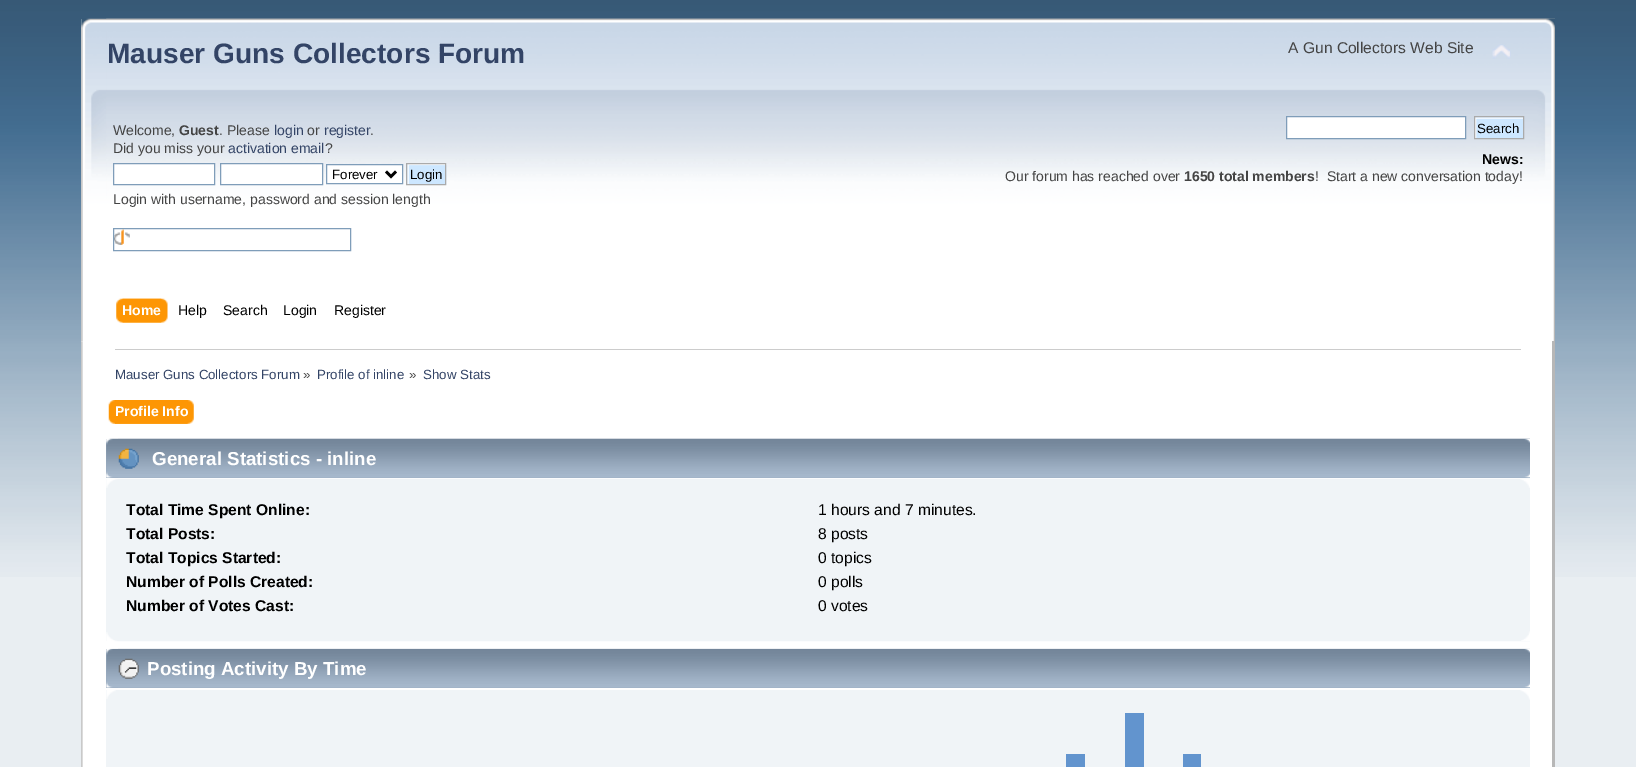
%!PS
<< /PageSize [1636 767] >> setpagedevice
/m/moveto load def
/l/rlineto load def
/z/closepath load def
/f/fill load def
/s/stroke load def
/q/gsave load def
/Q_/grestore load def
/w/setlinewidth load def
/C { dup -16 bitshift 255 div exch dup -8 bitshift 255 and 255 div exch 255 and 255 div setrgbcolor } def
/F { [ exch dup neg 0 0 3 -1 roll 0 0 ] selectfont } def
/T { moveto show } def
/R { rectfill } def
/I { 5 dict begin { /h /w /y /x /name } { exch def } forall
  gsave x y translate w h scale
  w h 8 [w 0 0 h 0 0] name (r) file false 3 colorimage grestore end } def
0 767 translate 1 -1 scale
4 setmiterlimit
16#E9EEF2 C
0 0 1636 767 R
(1.rgb) 0 0 1636 577 I
(2.rgb) 81 18 1474 323 I
(3.rgb) 106 18 1449 323 I
/LiberationSans-Bold 28.1 F
16#334466 C
(Mauser Guns Collectors Forum) 107 63 T
/LiberationSans-Regular 15.6 F
16#444444 C
(A Gun Collectors Web Site) 1288 53 T
(4.rgb) 1492 44 19 15 I
/LiberationSans-Regular 14 F
(Welcome,) 113 135 T
/LiberationSans-Bold 14 F
(Guest) 179 135 T
/LiberationSans-Regular 14 F
(. Please) 219 135 T
16#334466 C
(login) 274 135 T
16#444444 C
(or) 307 135 T
16#334466 C
(register) 324 135 T
16#444444 C
(.) 370 135 T
(Did you miss your) 113 153 T
16#334466 C
(activation email) 228 153 T
16#444444 C
(?) 325 153 T
16#FFFFFF C
113.5 163.5 m 101 0 l 0 21 l -101 0 l z q f Q_
16#7F9DB9 C
s
16#FFFFFF C
220.5 163.5 m 102 0 l 0 21 l -102 0 l z q f Q_
16#7F9DB9 C
s
16#FFFFFF C
326.5 164.5 m 76 0 l 0 19 l -76 0 l z q f Q_
16#7F9DB9 C
s
16#000000 C
2.5 w
386 171.5 m 5 5 l 5 -5 l s
/LiberationSans-Regular 13.3 F
(Forever) 332 179 T
16#CDE7FF C
407 164 1 20 R
(5.rgb) 407 163 40 22 I
16#AAAAAA C
1 w
406.5 163.5 39 21 rectstroke
16#000000 C
(Login) 410 179 T
/LiberationSans-Regular 14 F
16#444444 C
(Login with username, password and session length) 113 204 T
(6.rgb) 114 229 16 16 I
16#7F9DB9 C
113.5 228.5 237 22 rectstroke
16#FFFFFF C
1286.5 116.5 m 179 0 l 0 22 l -179 0 l z q f Q_
16#7F9DB9 C
s
16#CDE7FF C
1475 117 48 1 R
(7.rgb) 1475 117 48 21 I
16#AAAAAA C
1474.5 116.5 49 22 rectstroke
/LiberationSans-Regular 13.3 F
16#000000 C
(Search) 1477 133 T
/LiberationSans-Bold 14 F
(News:) 1482 164 T
/LiberationSans-Regular 14 F
16#444444 C
(Our forum has reached over) 1005 181 T
/LiberationSans-Bold 14 F
(1650 total members) 1184 181 T
/LiberationSans-Regular 14 F
(!  Start a new conversation today!) 1315 181 T
(8.rgb) 122 298 46 25 I
(9.rgb) 116 298 46 25 I
/LiberationSans-Bold 14 F
16#FFFFFF C
(Home) 122 315 T
/LiberationSans-Regular 14 F
16#000000 C
(Help) 178 315 T
(Search) 223 315 T
(Login) 283 315 T
(Register) 334 315 T
16#FFFFFF C
81 341 1471 426 R
(10.rgb) 81 341 2 426 I
16#B7B7B7 C
1552 341 3 426 R
16#CCCCCC C
115 349 1406 1 R
/LiberationSans-Regular 13.3 F
16#334466 C
(Mauser Guns Collectors Forum) 115 379 T
16#444444 C
(») 303 379 T
16#334466 C
(Profile of inline) 317 379 T
16#444444 C
(») 409 379 T
16#334466 C
(Show Stats) 423 379 T
(11.rgb) 115 400 79 24 I
(12.rgb) 108 400 80 24 I
/LiberationSans-Bold 14 F
16#FFFFFF C
(Profile Info) 115 416 T
16#99ABBF C
106 439 1424 39 R
(13.rgb) 106 438 1424 40 I
(14.rgb) 118 438 1412 40 I
(15.rgb) 118 448 21 21 I
/LiberationSans-Bold 18.75 F
16#FFFFFF C
(General Statistics - inline) 152 465 T
16#F0F4F7 C
106 479 1424 162 R
(16.rgb) 106 478 1424 10 I
(17.rgb) 1520 479 10 9 I
/LiberationSans-Bold 15.6 F
16#000000 C
(Total Time Spent Online:) 126 515 T
/LiberationSans-Regular 15.6 F
(1 hours and 7 minutes.) 818 515 T
/LiberationSans-Bold 15.6 F
(Total Posts:) 126 539 T
/LiberationSans-Regular 15.6 F
(8 posts) 818 539 T
/LiberationSans-Bold 15.6 F
(Total Topics Started:) 126 563 T
/LiberationSans-Regular 15.6 F
(0 topics) 818 563 T
/LiberationSans-Bold 15.6 F
(Number of Polls Created:) 126 587 T
/LiberationSans-Regular 15.6 F
(0 polls) 818 587 T
/LiberationSans-Bold 15.6 F
(Number of Votes Cast:) 126 611 T
/LiberationSans-Regular 15.6 F
(0 votes) 818 611 T
(18.rgb) 106 632 1424 10 I
(19.rgb) 1521 631 9 10 I
16#99ABBF C
106 649 1424 39 R
(20.rgb) 106 648 1424 40 I
(21.rgb) 118 648 1412 40 I
(22.rgb) 118 658 21 21 I
/LiberationSans-Bold 18.75 F
16#FFFFFF C
(Posting Activity By Time) 147 675 T
16#F0F4F7 C
106 690 1424 77 R
(23.rgb) 106 690 10 9 I
(24.rgb) 1520 690 10 10 I
16#6294CE C
1066 754 19 13 R
1125 713 19 54 R
1183 754 18 13 R
showpage
